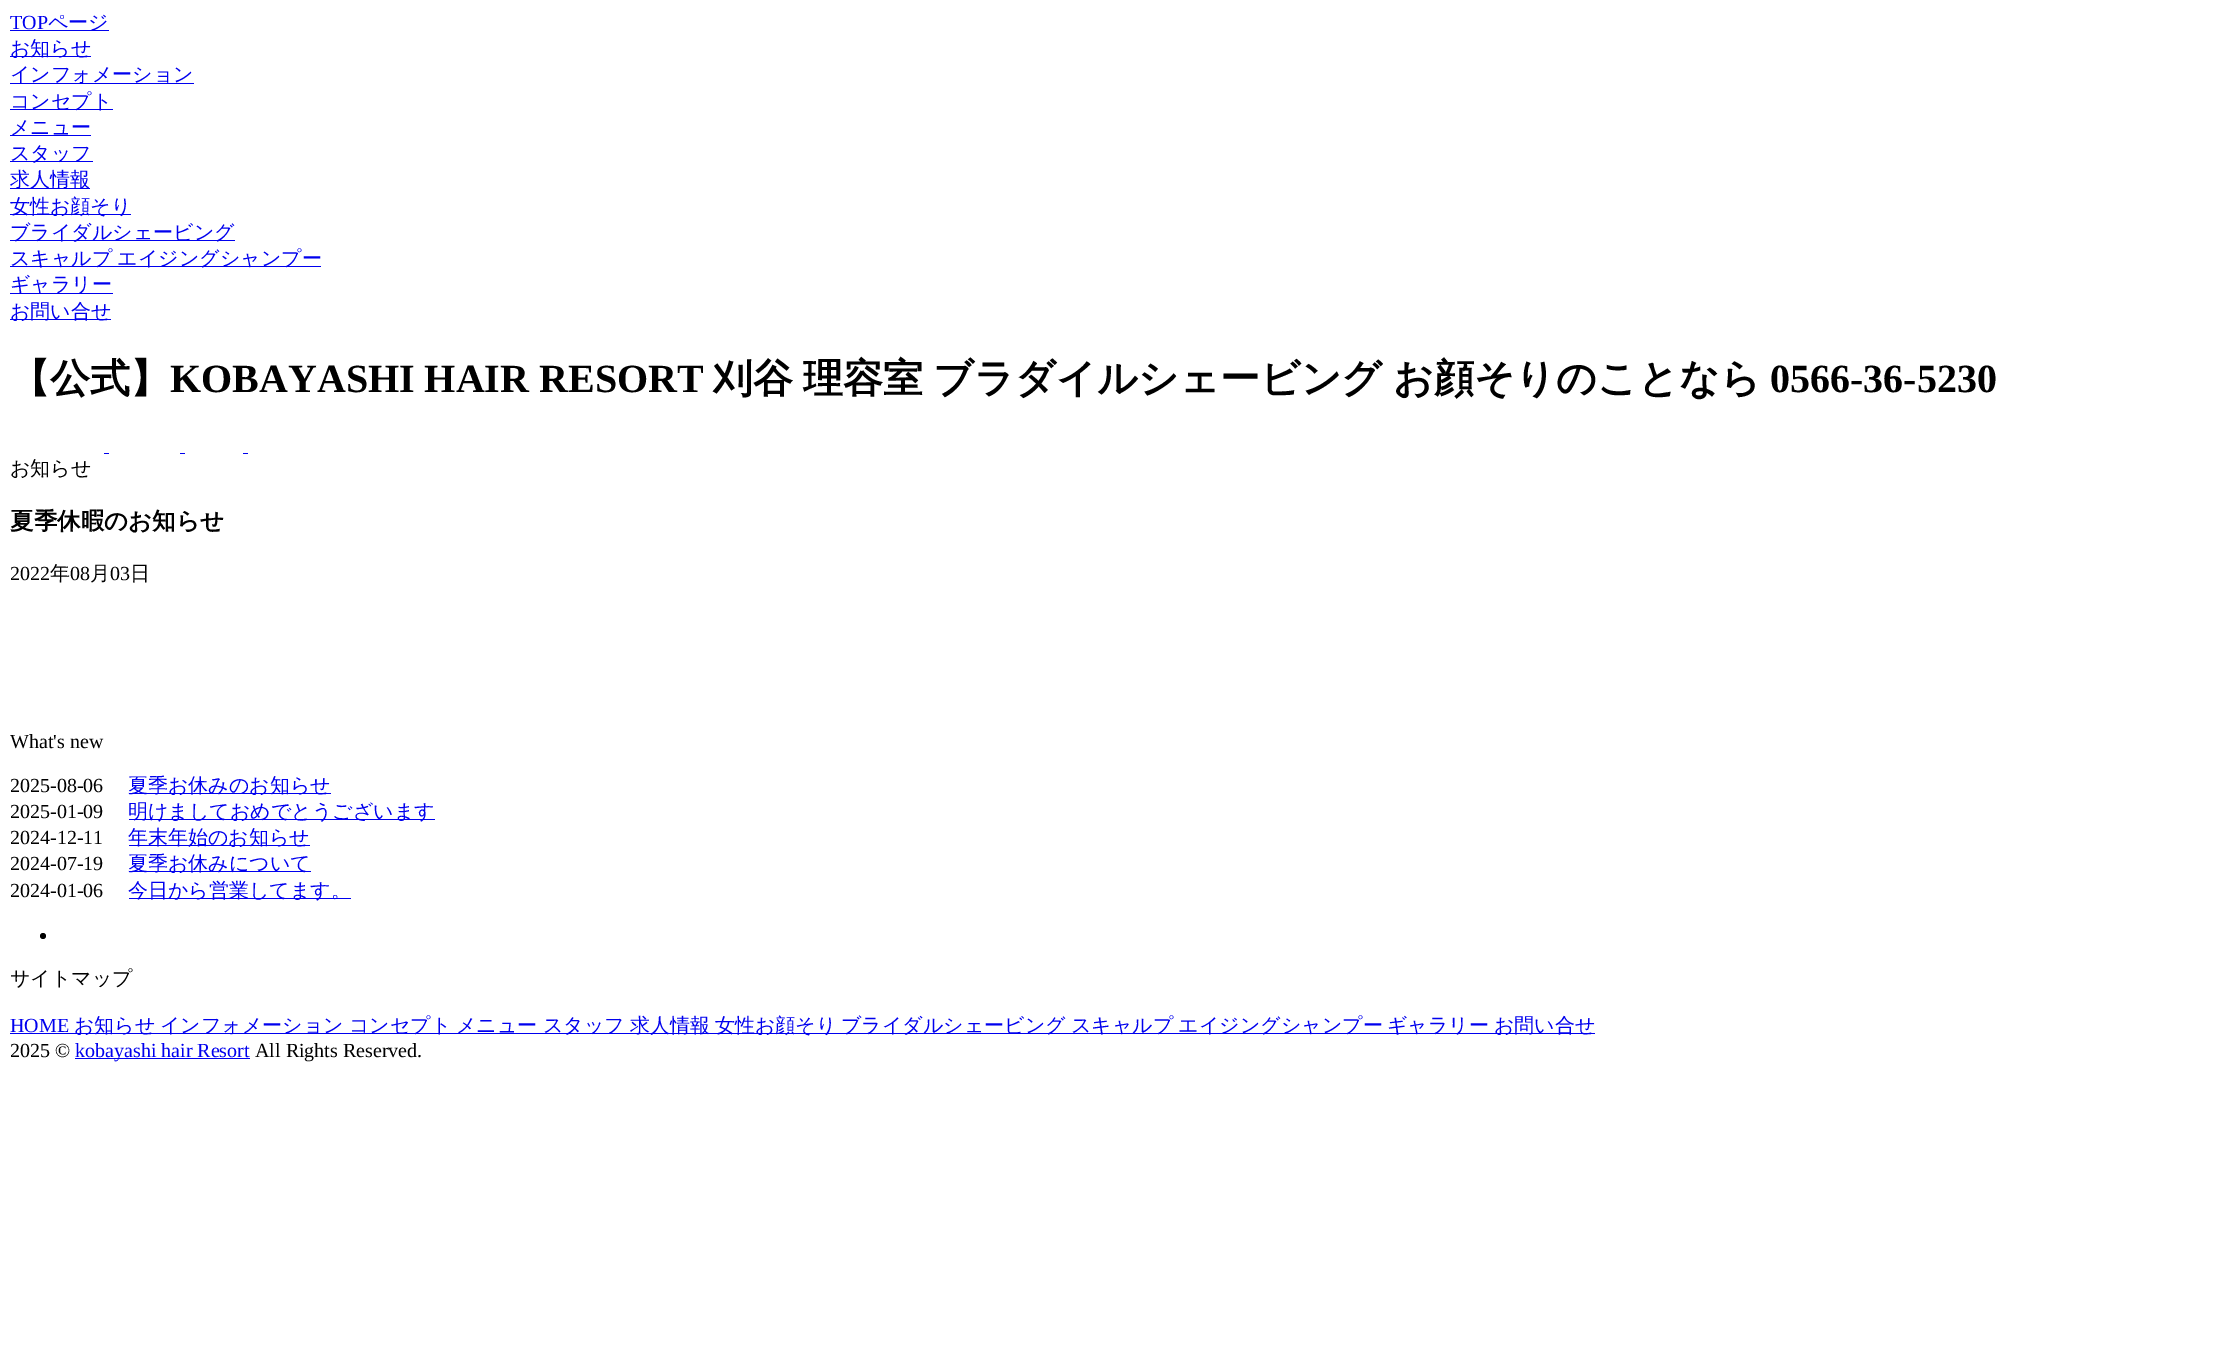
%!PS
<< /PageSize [2214 1361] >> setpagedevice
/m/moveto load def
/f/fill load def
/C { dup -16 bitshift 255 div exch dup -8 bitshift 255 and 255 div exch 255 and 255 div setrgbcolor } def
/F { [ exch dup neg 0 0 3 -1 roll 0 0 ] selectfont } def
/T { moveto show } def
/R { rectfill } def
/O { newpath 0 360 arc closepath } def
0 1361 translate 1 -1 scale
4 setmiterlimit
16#FFFFFF C
0 0 2214 1361 R
/LiberationSerif-Regular 20 F
16#0000EE C
(TOP) 10 29 T
10 30 99 1 R
/WenQuanYiZenHei-Medium 20 F
(ページ) 48 29 T
10 56 81 1 R
(お知らせ) 10 55 T
10 83 184 1 R
(インフォメーション) 10 81 T
10 109 103 1 R
(コンセプト) 10 108 T
10 135 81 1 R
(メニュー) 10 134 T
10 161 83 1 R
(スタッフ) 10 160 T
10 188 80 1 R
(求人情報) 10 186 T
10 214 121 1 R
(女性お顔そり) 10 213 T
10 240 225 1 R
(ブライダルシェービング) 10 239 T
10 266 311 1 R
10 265 m -1 0 32 (スキャルプ エイジングシャンプー) widthshow
10 293 103 1 R
(ギャラリー) 10 291 T
10 319 101 1 R
(お問い合せ) 10 318 T
/WenQuanYiZenHei-Bold 40 F
16#000000 C
(【公式】) 10 392 T
/LiberationSerif-Bold 40 F
(KOBAYASHI HAIR RESORT) 170 392 T
/WenQuanYiZenHei-Bold 40 F
(刈谷) 713 392 T
(理容室) 803 392 T
(ブラダイルシェービング) 933 392 T
(お顔そりのことなら) 1393 392 T
/LiberationSerif-Bold 40 F
(0566-36-5230) 1770 392 T
16#0000EE C
104 453 5 1 R
180 453 5 1 R
243 453 5 1 R
/WenQuanYiZenHei-Medium 20 F
16#000000 C
(お知らせ) 10 475 T
/WenQuanYiZenHei-Bold 23.5 F
(夏季休暇のお知らせ) 10 529 T
/LiberationSerif-Regular 20 F
(2022) 10 580 T
/WenQuanYiZenHei-Medium 20 F
(年) 50 580 T
/LiberationSerif-Regular 20 F
(08) 70 580 T
/WenQuanYiZenHei-Medium 20 F
(月) 90 580 T
/LiberationSerif-Regular 20 F
(03) 110 580 T
/WenQuanYiZenHei-Medium 20 F
(日) 130 580 T
/LiberationSerif-Regular 20 F
(What's new) 10 748 T
(2025-08-06) 10 792 T
16#0000EE C
129 793 202 1 R
/WenQuanYiZenHei-Medium 20 F
(夏季お休みのお知らせ) 128 792 T
/LiberationSerif-Regular 20 F
16#000000 C
(2025-01-09) 10 818 T
16#0000EE C
129 819 306 1 R
/WenQuanYiZenHei-Medium 20 F
(明けましておめでとうございます) 128 818 T
/LiberationSerif-Regular 20 F
16#000000 C
(2024-12-11) 10 844 T
16#0000EE C
129 845 181 1 R
/WenQuanYiZenHei-Medium 20 F
(年末年始のお知らせ) 128 844 T
/LiberationSerif-Regular 20 F
16#000000 C
(2024-07-19) 10 870 T
16#0000EE C
129 871 182 1 R
/WenQuanYiZenHei-Medium 20 F
(夏季お休みについて) 128 870 T
/LiberationSerif-Regular 20 F
16#000000 C
(2024-01-06) 10 897 T
16#0000EE C
129 898 222 1 R
/WenQuanYiZenHei-Medium 20 F
(今日から営業してます。) 128 897 T
16#000000 C
43 936 3 O f
(サイトマップ) 10 985 T
/LiberationSerif-Regular 20 F
16#0000EE C
(HOME) 10 1032 T
10 1033 1585 1 R
/WenQuanYiZenHei-Medium 20 F
(お知らせ) 74 1032 T
(インフォメーション) 160 1032 T
(コンセプト) 349 1032 T
(メニュー) 456 1032 T
(スタッフ) 543 1032 T
(求人情報) 630 1032 T
(女性お顔そり) 715 1032 T
(ブライダルシェービング) 841 1032 T
1071 1032 m -1 0 32 (スキャルプ エイジングシャンプー) widthshow
(ギャラリー) 1387 1032 T
(お問い合せ) 1494 1032 T
/LiberationSerif-Regular 20 F
16#000000 C
(2025 ©) 10 1057 T
16#0000EE C
75 1058 175 1 R
(kobayashi hair Resort) 75 1057 T
16#000000 C
(All Rights Reserved.) 255 1057 T
showpage
